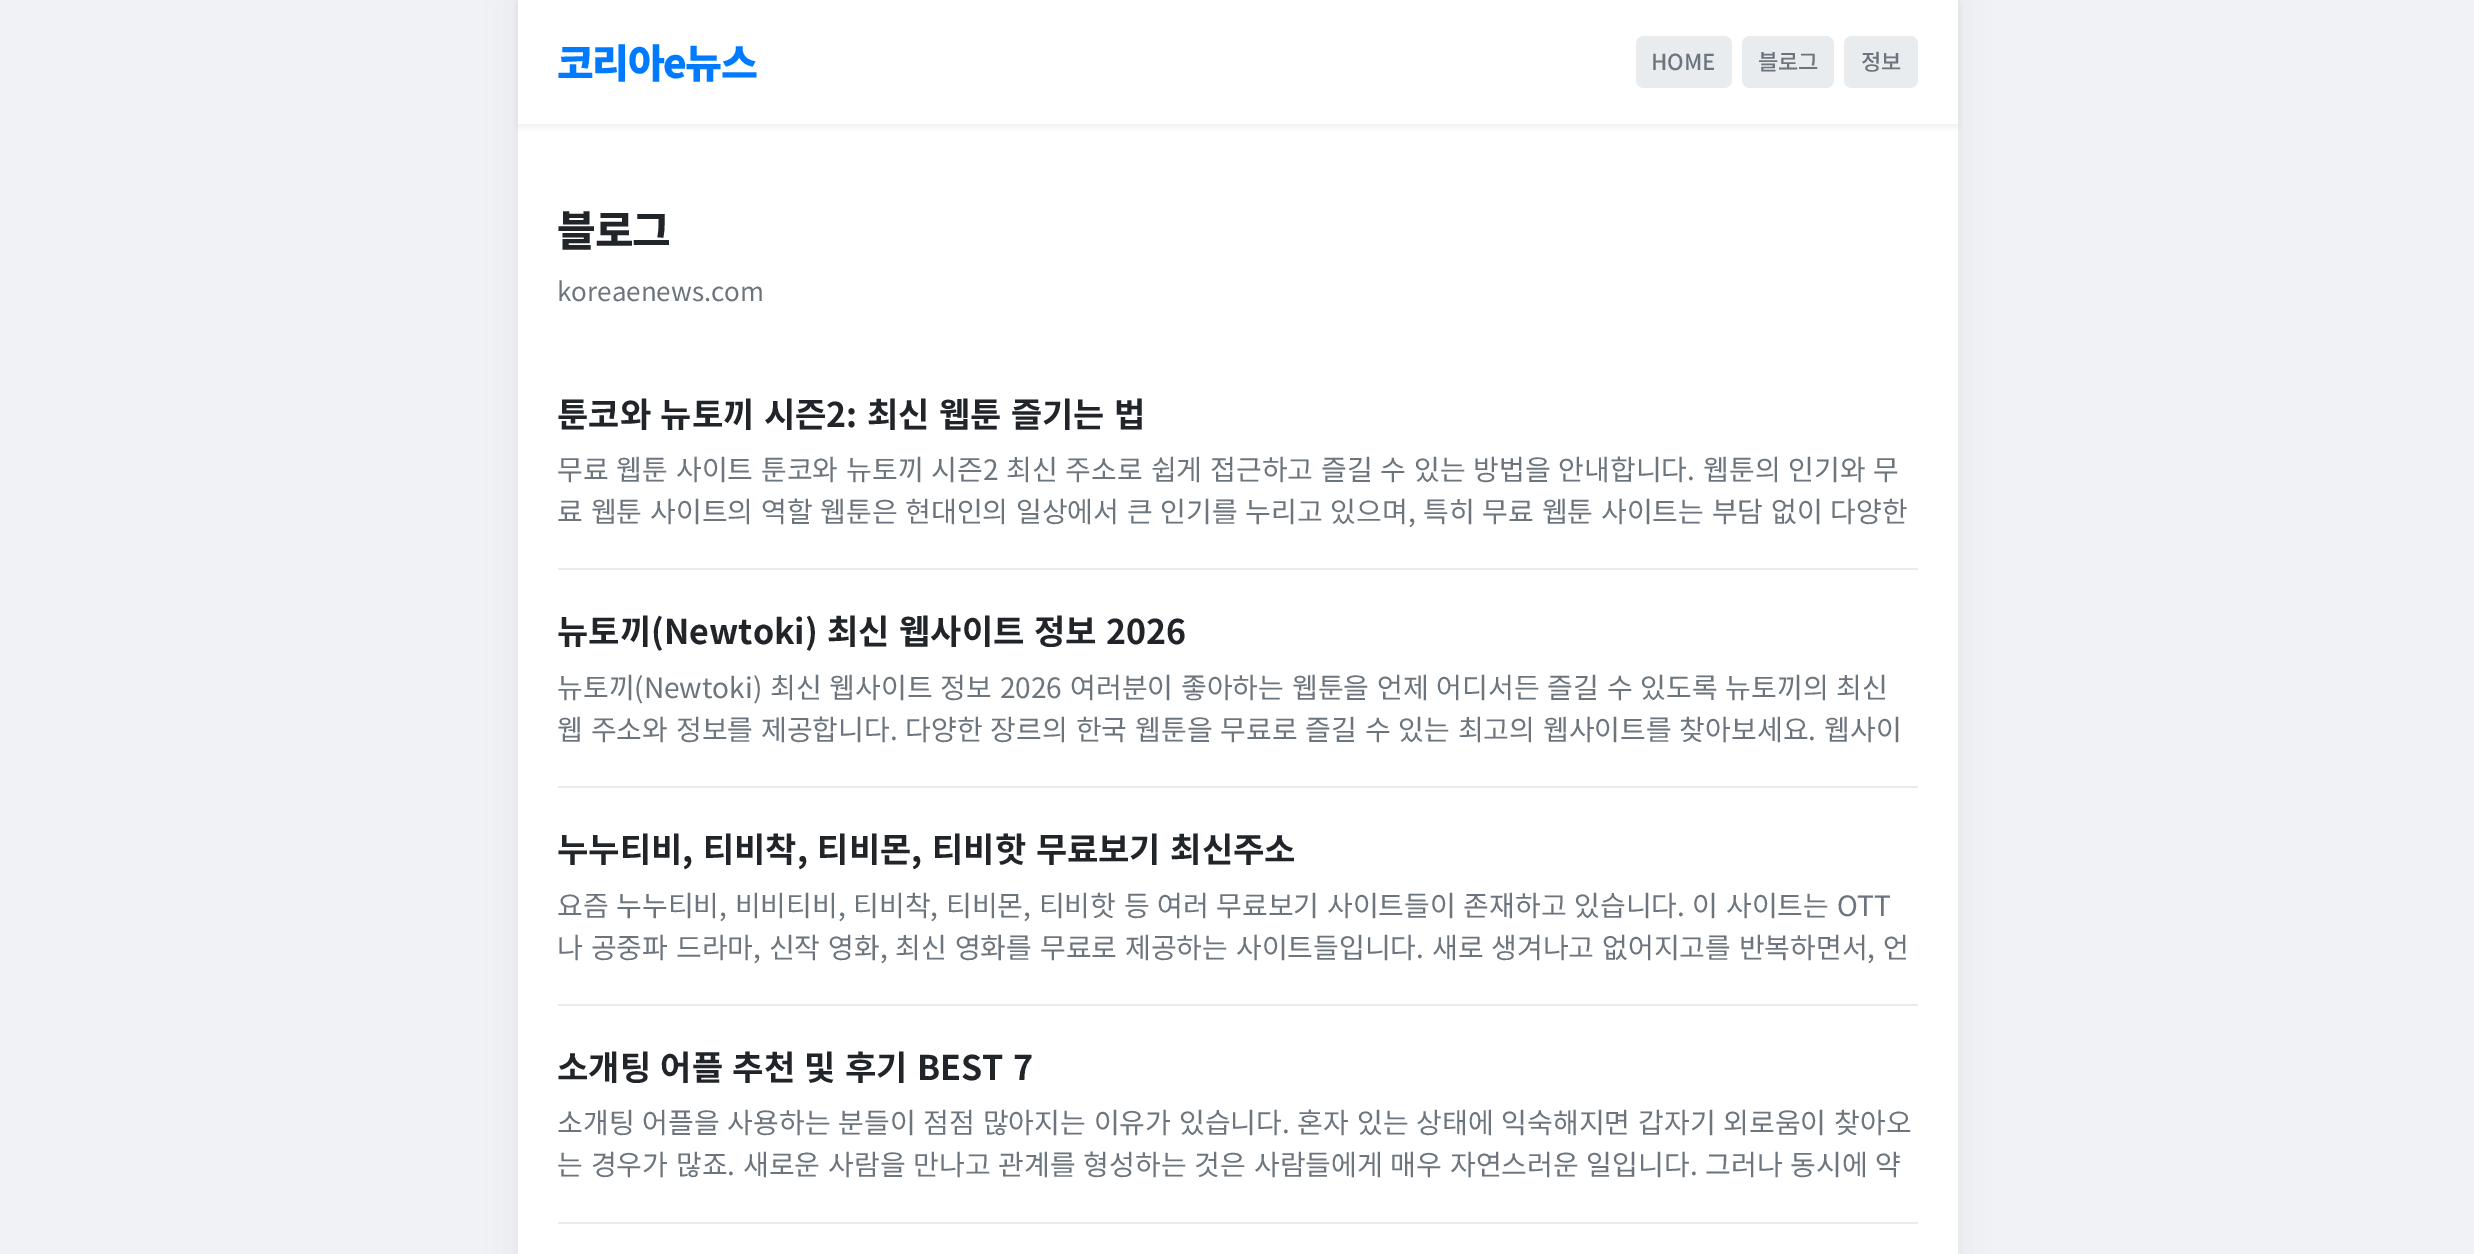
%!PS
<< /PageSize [2474 1254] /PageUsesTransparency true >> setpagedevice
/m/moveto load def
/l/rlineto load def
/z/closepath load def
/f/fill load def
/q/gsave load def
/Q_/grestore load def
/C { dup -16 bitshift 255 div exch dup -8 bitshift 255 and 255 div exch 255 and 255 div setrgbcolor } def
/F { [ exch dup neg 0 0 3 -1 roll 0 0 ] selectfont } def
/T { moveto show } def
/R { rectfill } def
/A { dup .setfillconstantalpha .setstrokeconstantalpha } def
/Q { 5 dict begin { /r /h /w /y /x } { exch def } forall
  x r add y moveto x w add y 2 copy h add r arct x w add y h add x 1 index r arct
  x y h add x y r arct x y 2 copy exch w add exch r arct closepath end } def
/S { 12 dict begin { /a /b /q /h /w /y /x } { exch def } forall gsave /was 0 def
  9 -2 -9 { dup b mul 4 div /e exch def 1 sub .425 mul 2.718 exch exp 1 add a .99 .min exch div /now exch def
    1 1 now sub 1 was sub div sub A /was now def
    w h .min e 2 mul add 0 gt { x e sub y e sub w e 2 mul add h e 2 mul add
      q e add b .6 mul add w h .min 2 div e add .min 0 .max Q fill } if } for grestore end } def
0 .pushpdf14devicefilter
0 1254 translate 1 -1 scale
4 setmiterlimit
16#F0F2F5 C
0 0 2474 1254 R
16#000000 C
518 0 1440 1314 0 20 .05 S
16#FFFFFF C
518 0 1440 1254 R
q
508 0 m 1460 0 l 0 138 l -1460 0 l z 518 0 m 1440 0 l 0 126 l -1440 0 l z eoclip newpath
16#000000 C
518 2 1440 126 0 3 .06 S
Q_
16#F2F2F2 C
518 124 1440 2 R
/NotoSansKR-Black 40 F
16#007BFF C
557 78 m -1.5 0 (코리아e뉴스) ashow
16#E9ECEF C
1636 36 96 52 8 Q f
/NotoSansKR-Medium 22 F
16#6C757D C
(HOME) 1651 70 T
16#E9ECEF C
1742 36 92 52 8 Q f
16#6C757D C
(블로그) 1758 70 T
16#E9ECEF C
1844 36 74 52 8 Q f
16#6C757D C
(정보) 1861 70 T
/NotoSansKR-ExtraBold 42 F
16#212529 C
557 246 m -1 0 (블로그) ashow
/NotoSansKR-Regular 26 F
16#6C757D C
(koreaenews.com) 557 301 T
16#EBEBEB C
558 568 1360 2 R
/NotoSansKR-Bold 34 F
16#212529 C
557 427 m 1.75 0 32 (툰코와 뉴토끼 시즌2: 최신 웹툰 즐기는 법) widthshow
/NotoSansKR-Regular 28 F
16#6C757D C
557 480 m 1.6 0 32 (무료 웹툰 사이트 툰코와 뉴토끼 시즌2 최신 주소로 쉽게 접근하고 즐길 수 있는 방법을 안내합니다.) widthshow
1703 480 m 1.6 0 32 (웹툰의 인기와 무) widthshow
557 522 m 1.6 0 32 (료 웹툰 사이트의 역할) widthshow
820 522 m 1.5 0 32 (웹툰은 현대인의 일상에서 큰 인기를 누리고 있으며, 특히 무료 웹툰 사이트는 부담 없이 다양한) widthshow
16#EBEBEB C
558 786 1360 2 R
/NotoSansKR-Bold 34 F
16#212529 C
557 644 m 1.75 0 32 (뉴토끼\(Newtoki\) 최신 웹사이트 정보 2026) widthshow
/NotoSansKR-Regular 28 F
16#6C757D C
557 698 m 1.6 0 32 (뉴토끼\(Newtoki\) 최신 웹사이트 정보 2026) widthshow
1070 698 m 1.6 0 32 (여러분이 좋아하는 웹툰을 언제 어디서든 즐길 수 있도록 뉴토끼의 최신) widthshow
557 740 m 1.6 0 32 (웹 주소와 정보를 제공합니다. 다양한 장르의 한국 웹툰을 무료로 즐길 수 있는 최고의 웹사이트를 찾아보세요.) widthshow
(웹사이) 1824 740 T
16#EBEBEB C
558 1004 1360 2 R
/NotoSansKR-Bold 34 F
16#212529 C
557 862 m 2 0 32 (누누티비, 티비착, 티비몬, 티비핫 무료보기 최신주소) widthshow
/NotoSansKR-Regular 28 F
16#6C757D C
557 916 m 1.4 0 32 (요즘 누누티비, 비비티비, 티비착, 티비몬, 티비핫 등 여러 무료보기 사이트들이 존재하고 있습니다. 이 사이트는 OTT) widthshow
557 958 m 1.6 0 32 (나 공중파 드라마, 신작 영화, 최신 영화를 무료로 제공하는 사이트들입니다. 새로 생겨나고 없어지고를 반복하면서, 언) widthshow
16#EBEBEB C
558 1222 1360 2 R
/NotoSansKR-Bold 34 F
16#212529 C
557 1080 m 1.75 0 32 (소개팅 어플 추천 및 후기 BEST 7) widthshow
/NotoSansKR-Regular 28 F
16#6C757D C
557 1133 m 1.6 0 32 (소개팅 어플을 사용하는 분들이 점점 많아지는 이유가 있습니다. 혼자 있는 상태에 익숙해지면 갑자기 외로움이 찾아오) widthshow
557 1175 m 1.6 0 32 (는 경우가 많죠. 새로운 사람을 만나고 관계를 형성하는 것은 사람들에게 매우 자연스러운 일입니다. 그러나 동시에 약) widthshow
.poppdf14devicefilter showpage
